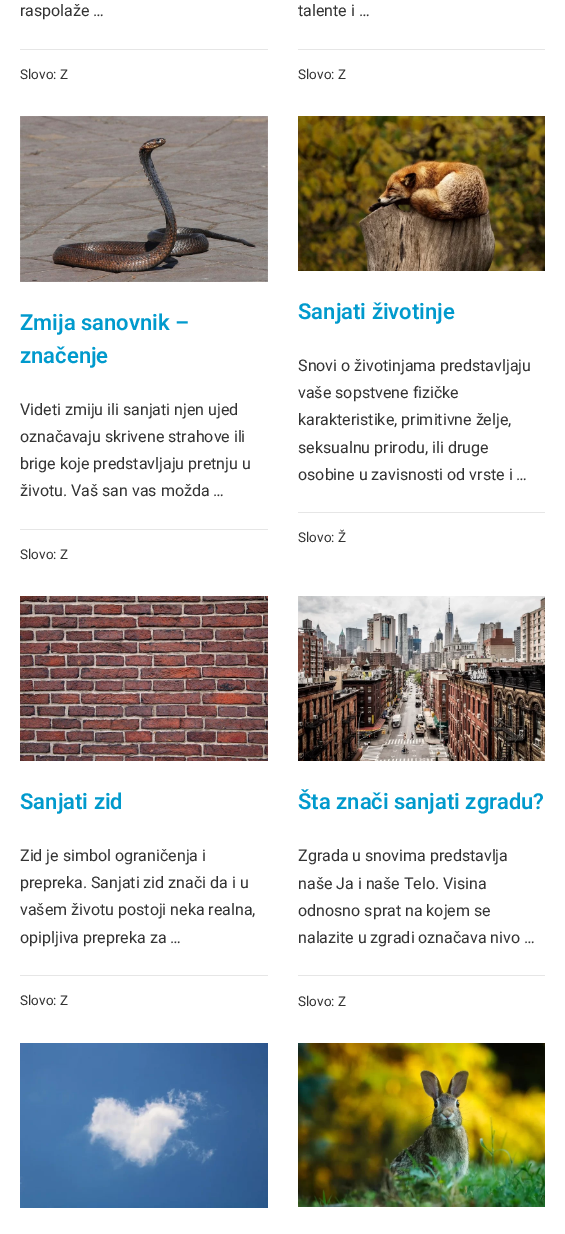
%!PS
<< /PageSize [565 1234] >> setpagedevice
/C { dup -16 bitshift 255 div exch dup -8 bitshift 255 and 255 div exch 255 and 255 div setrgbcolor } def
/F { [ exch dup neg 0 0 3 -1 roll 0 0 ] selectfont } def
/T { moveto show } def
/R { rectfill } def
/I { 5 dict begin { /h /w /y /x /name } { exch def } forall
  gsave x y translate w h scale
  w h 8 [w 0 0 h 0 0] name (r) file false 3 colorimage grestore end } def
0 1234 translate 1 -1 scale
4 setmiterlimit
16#FFFFFF C
0 0 565 1234 R
/Roboto-Regular 16 F
16#333333 C
(raspolaže …) 20 16 T
16#E6E6E6 C
20 49 248 1 R
/Roboto-Regular 13.5 F
16#333333 C
(Slovo: Z) 20 79 T
/Roboto-Regular 16 F
(talente i …) 298 16 T
16#E6E6E6 C
298 49 247 1 R
/Roboto-Regular 13.5 F
16#333333 C
(Slovo: Z) 298 79 T
(1.rgb) 20 116 248 166 I
/Roboto-SemiBold 22 F
16#009ACD C
(Zmija sanovnik –) 20 330 T
(značenje) 20 363 T
/Roboto-Regular 16 F
16#333333 C
(Videti zmiju ili sanjati njen ujed) 20 415 T
(označavaju skrivene strahove ili) 20 442 T
(brige koje predstavljaju pretnju u) 20 469 T
(životu. Vaš san vas možda …) 20 496 T
16#E6E6E6 C
20 529 248 1 R
/Roboto-Regular 13.5 F
16#333333 C
(Slovo: Z) 20 559 T
(2.rgb) 298 116 247 155 I
/Roboto-SemiBold 22 F
16#009ACD C
(Sanjati životinje) 298 319 T
/Roboto-Regular 16 F
16#333333 C
(Snovi o životinjama predstavljaju) 298 371 T
(vaše sopstvene fizičke) 298 398 T
(karakteristike, primitivne želje,) 298 425 T
(seksualnu prirodu, ili druge) 298 453 T
(osobine u zavisnosti od vrste i …) 298 480 T
16#E6E6E6 C
298 512 247 1 R
/Roboto-Regular 13.5 F
16#333333 C
(Slovo: Ž) 298 542 T
(3.rgb) 20 596 248 165 I
/Roboto-SemiBold 22 F
16#009ACD C
(Sanjati zid) 20 809 T
/Roboto-Regular 16 F
16#333333 C
(Zid je simbol ograničenja i) 20 861 T
(prepreka. Sanjati zid znači da i u) 20 888 T
(vašem životu postoji neka realna,) 20 915 T
(opipljiva prepreka za …) 20 943 T
16#E6E6E6 C
20 975 248 1 R
/Roboto-Regular 13.5 F
16#333333 C
(Slovo: Z) 20 1005 T
(4.rgb) 298 596 247 165 I
/Roboto-SemiBold 22 F
16#009ACD C
(Šta znači sanjati zgradu?) 298 809 T
/Roboto-Regular 16 F
16#333333 C
(Zgrada u snovima predstavlja) 298 861 T
(naše Ja i naše Telo. Visina) 298 889 T
(odnosno sprat na kojem se) 298 916 T
(nalazite u zgradi označava nivo …) 298 943 T
16#E6E6E6 C
298 975 247 1 R
/Roboto-Regular 13.5 F
16#333333 C
(Slovo: Z) 298 1006 T
(5.rgb) 20 1043 248 165 I
(6.rgb) 298 1043 247 164 I
showpage
